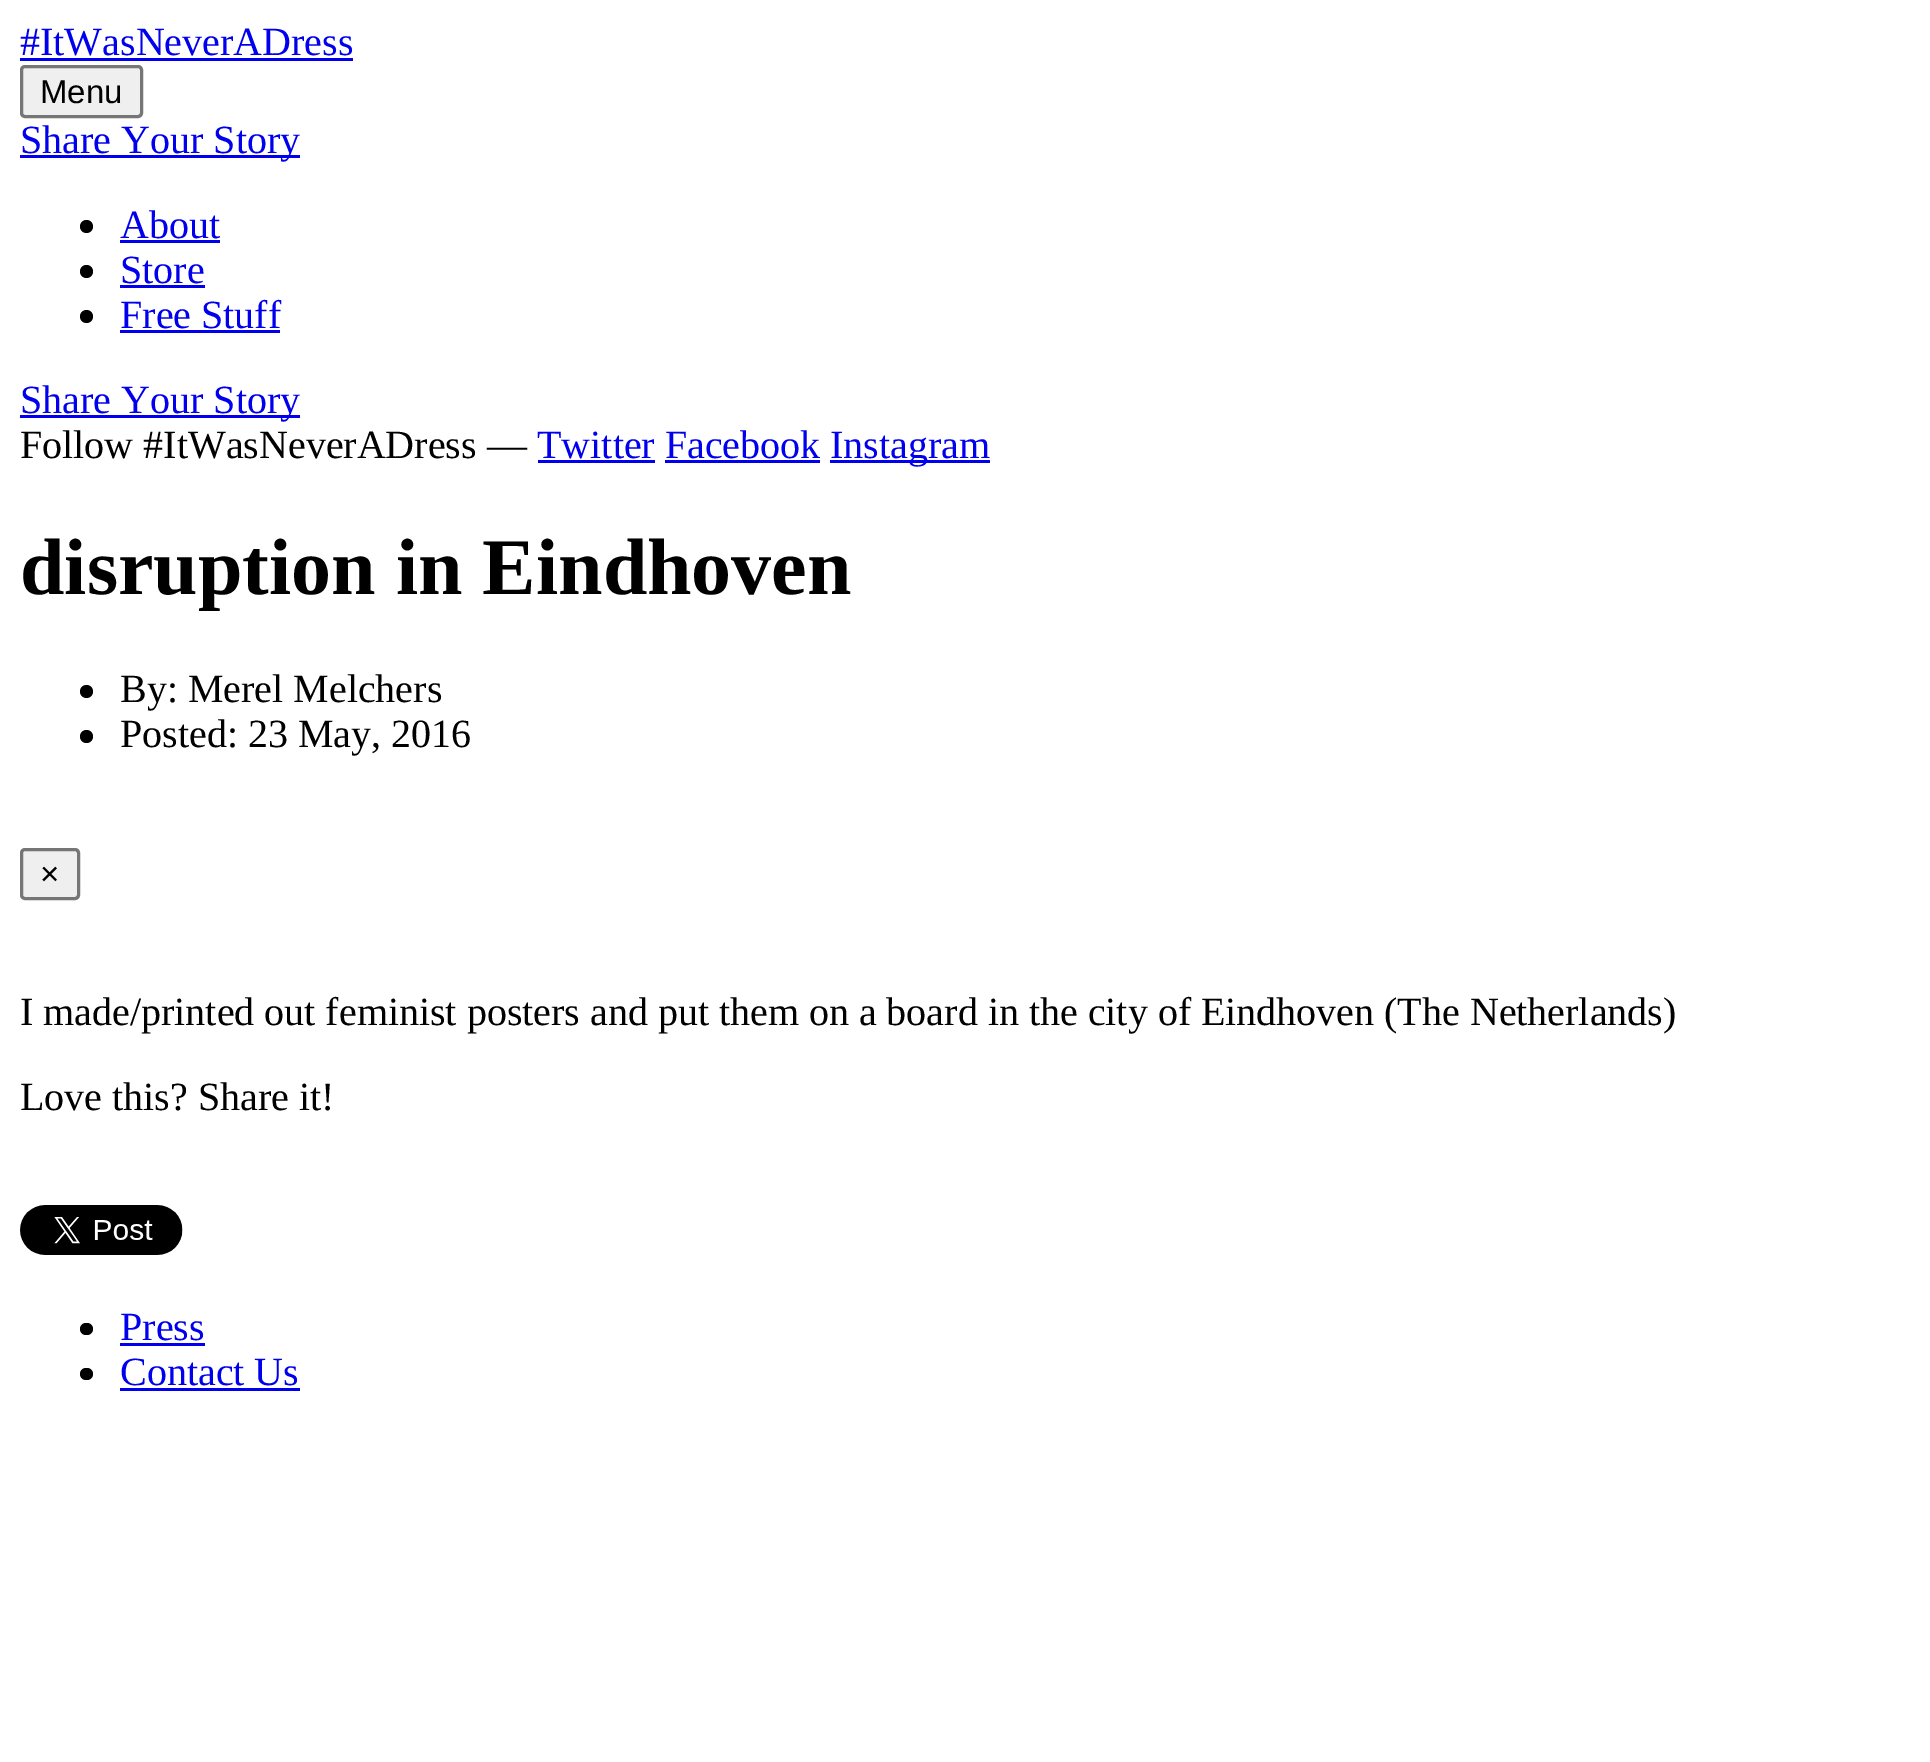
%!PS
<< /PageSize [1930 1762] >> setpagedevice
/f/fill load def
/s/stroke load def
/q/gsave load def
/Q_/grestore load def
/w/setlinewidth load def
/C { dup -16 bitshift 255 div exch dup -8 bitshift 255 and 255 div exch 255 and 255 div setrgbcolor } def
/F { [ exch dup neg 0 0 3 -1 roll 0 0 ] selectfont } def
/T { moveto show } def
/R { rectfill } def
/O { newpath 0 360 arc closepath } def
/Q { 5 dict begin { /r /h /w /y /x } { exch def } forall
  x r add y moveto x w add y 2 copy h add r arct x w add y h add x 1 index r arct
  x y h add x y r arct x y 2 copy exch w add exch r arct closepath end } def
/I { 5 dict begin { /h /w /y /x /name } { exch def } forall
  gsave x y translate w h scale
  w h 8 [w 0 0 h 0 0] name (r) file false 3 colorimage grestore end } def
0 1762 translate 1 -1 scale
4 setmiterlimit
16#FFFFFF C
0 0 1930 1762 R
/LiberationSerif-Regular 40 F
16#0000EE C
(#ItWasNeverADress) 20 55 T
20 58 333 3 R
16#EFEFEF C
21.5 66.5 120 50 3.5 Q q f Q_
16#767676 C
3 w
s
/LiberationSans-Regular 33 F
16#000000 C
(Menu) 40 103 T
16#0000EE C
20 155 280 3 R
/LiberationSerif-Regular 40 F
(Share Your Story) 20 153 T
16#000000 C
86.5 226.5 6.5 O f
16#0000EE C
(About) 120 238 T
120 240 100 3 R
16#000000 C
86.5 271.5 6.5 O f
16#0000EE C
(Store) 120 283 T
120 285 85 3 R
16#000000 C
86.5 316.5 6.5 O f
16#0000EE C
(Free Stuff) 120 328 T
120 330 160 3 R
20 415 280 3 R
(Share Your Story) 20 413 T
16#000000 C
(Follow #ItWasNeverADress —) 20 458 T
16#0000EE C
(Twitter Facebook) 537 458 T
538 460 117 3 R
830 460 160 3 R
(Instagram) 830 458 T
665 460 155 3 R
/LiberationSerif-Bold 80 F
16#000000 C
(disruption in Eindhoven) 20 594 T
86.5 691.5 6.5 O f
/LiberationSerif-Regular 40 F
(By: Merel Melchers) 120 702 T
86.5 736.5 6.5 O f
(Posted: 23 May, 2016) 120 747 T
16#EFEFEF C
21.5 849.5 57 49 3.5 Q q f Q_
16#767676 C
s
/LiberationSans-Regular 33 F
16#000000 C
(×) 40 885 T
/LiberationSerif-Regular 40 F
(I made/printed out feminist posters and put them on a board in the city of Eindhoven \(The Netherlands\)) 20 1025 T
(Love this? Share it!) 20 1110 T
(1.rgb) 20 1205 163 50 I
80 1323 13 12 6 Q f
16#0000EE C
(Press) 120 1340 T
120 1343 85 3 R
16#000000 C
80 1368 13 12 6 Q f
16#0000EE C
(Contact Us) 120 1385 T
120 1388 180 3 R
showpage
